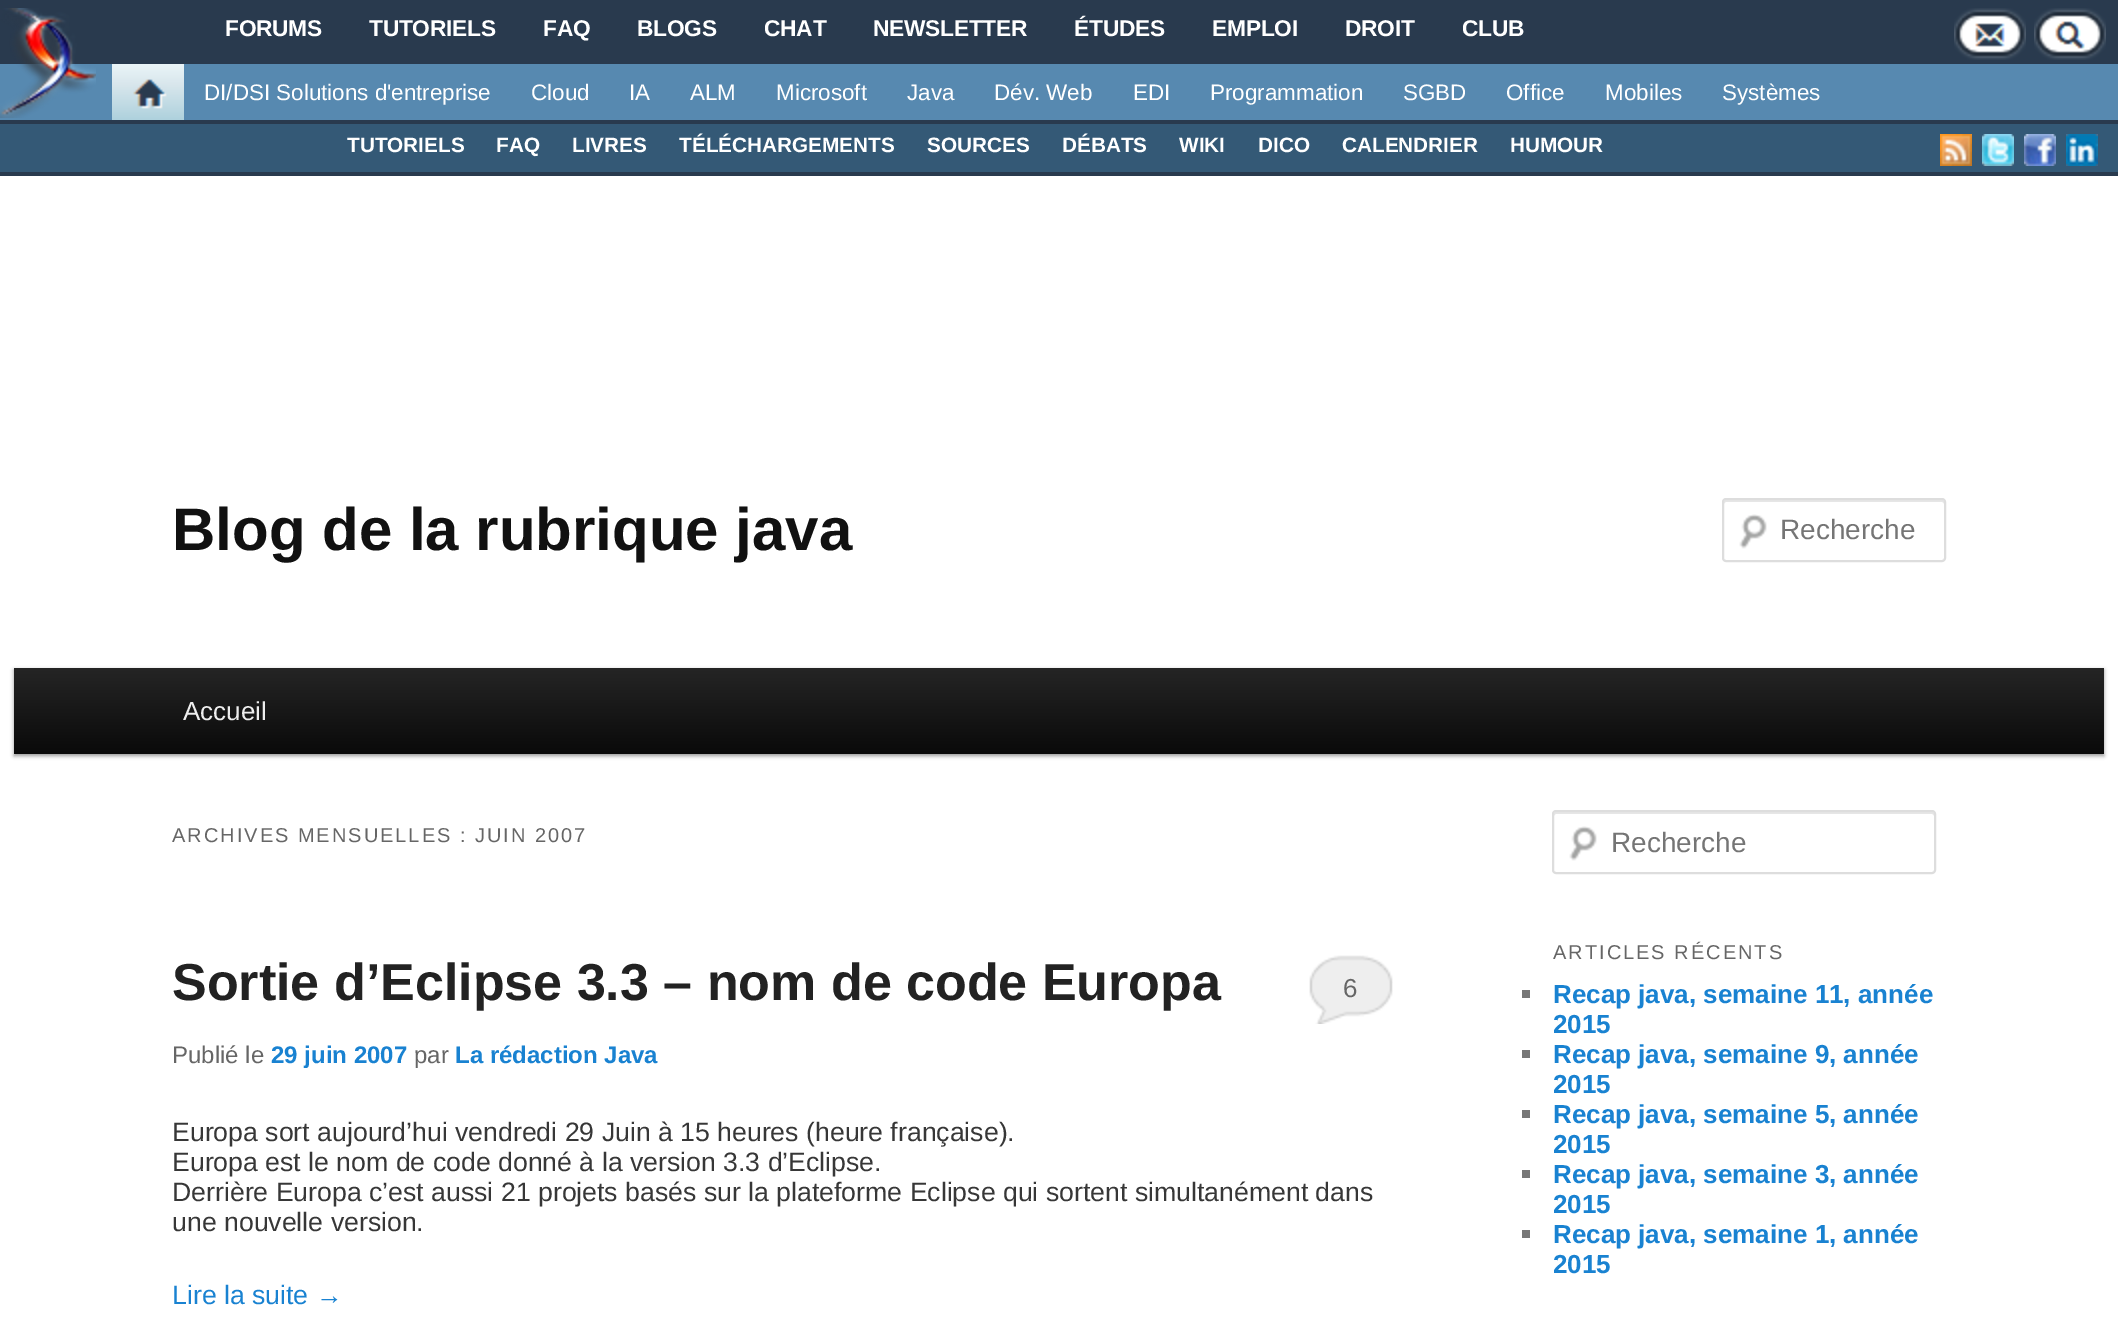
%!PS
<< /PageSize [2118 1323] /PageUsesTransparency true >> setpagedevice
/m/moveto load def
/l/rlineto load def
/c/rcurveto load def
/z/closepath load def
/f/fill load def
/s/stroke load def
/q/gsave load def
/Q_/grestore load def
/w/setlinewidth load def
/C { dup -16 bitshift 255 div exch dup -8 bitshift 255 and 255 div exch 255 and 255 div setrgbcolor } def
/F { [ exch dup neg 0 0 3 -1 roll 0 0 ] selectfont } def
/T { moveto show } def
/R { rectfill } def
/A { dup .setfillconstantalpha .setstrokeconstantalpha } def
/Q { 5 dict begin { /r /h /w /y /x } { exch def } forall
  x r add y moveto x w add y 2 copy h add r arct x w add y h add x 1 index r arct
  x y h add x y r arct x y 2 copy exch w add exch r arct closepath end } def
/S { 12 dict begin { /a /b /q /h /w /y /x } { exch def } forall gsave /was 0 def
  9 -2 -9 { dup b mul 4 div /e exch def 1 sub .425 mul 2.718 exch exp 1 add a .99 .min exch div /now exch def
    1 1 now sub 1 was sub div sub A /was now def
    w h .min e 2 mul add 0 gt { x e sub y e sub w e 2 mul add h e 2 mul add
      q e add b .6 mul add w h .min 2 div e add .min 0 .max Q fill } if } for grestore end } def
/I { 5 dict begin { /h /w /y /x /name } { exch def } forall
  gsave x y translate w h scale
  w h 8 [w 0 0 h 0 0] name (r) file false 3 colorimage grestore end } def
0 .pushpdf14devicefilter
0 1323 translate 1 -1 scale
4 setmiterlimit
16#293A4E C
0 0 2118 1323 R
16#5789B0 C
0 64 2118 56 R
(1.rgb) 0 8 96 110 I
/LiberationSans-Bold 22.75 F
16#FFFFFF C
225 36 m -.25 0 (FORUMS) ashow
369 36 m -.25 0 (TUTORIELS) ashow
543 36 m -.25 0 (FAQ) ashow
637 36 m -.25 0 (BLOGS) ashow
764 36 m -.25 0 (CHAT) ashow
873 36 m -.25 0 (NEWSLETTER) ashow
1074 36 m -.25 0 (ÉTUDES) ashow
1212 36 m -.25 0 (EMPLOI) ashow
1345 36 m -.25 0 (DROIT) ashow
1462 36 m -.25 0 (CLUB) ashow
(2.rgb) 1954 8 72 52 I
(3.rgb) 2034 8 72 52 I
q 112 64 m 72 0 l 0 56 l -72 0 l z clip newpath
<< /ShadingType 2 /ColorSpace /DeviceRGB /Coords [148 64 148 120] /Extend [true true] /Function << /FunctionType 3 /Domain [0 1] /Functions [<< /FunctionType 2 /Domain [0 1] /C0 [.918 .961 .973] /C1 [.847 .902 .925] /N 1 >> << /FunctionType 2 /Domain [0 1] /C0 [.847 .902 .925] /C1 [.682 .82 .867] /N 1 >>] /Bounds [.37] /Encode [0 1 0 1] >> >> shfill Q_
(4.rgb) 133 79 34 30 I
/LiberationSans-Regular 22.4 F
(DI/DSI Solutions d'entreprise) 204 100 T
(Cloud) 531 100 T
(IA) 629 100 T
(ALM) 690 100 T
(Microsoft) 776 100 T
(Java) 907 100 T
(Dév. Web) 994 100 T
(EDI) 1133 100 T
(Programmation) 1210 100 T
(SGBD) 1403 100 T
(Office) 1506 100 T
(Mobiles) 1605 100 T
(Systèmes) 1722 100 T
16#345976 C
0 124 2118 48 R
/LiberationSans-Bold 20.75 F
16#FFFFFF C
(TUTORIELS) 347 152 T
(FAQ) 496 152 T
(LIVRES) 572 152 T
(TÉLÉCHARGEMENTS) 679 152 T
(SOURCES) 927 152 T
(DÉBATS) 1062 152 T
(WIKI) 1179 152 T
(DICO) 1258 152 T
(CALENDRIER) 1342 152 T
(HUMOUR) 1510 152 T
(5.rgb) 1940 134 32 32 I
(6.rgb) 1982 134 32 32 I
(7.rgb) 2024 134 32 32 I
(8.rgb) 2066 134 32 32 I
0 176 2118 1147 R
/LiberationSans-Bold 60 F
16#111111 C
(Blog de la rubrique java) 172 550 T
(9.rgb) 1739 514 28 35 I
16#E6E6E6 C
1726 502 m 216 0 l 1 0 2 1 2 2 c 0 -2 l 0 -1 -1 -2 -2 -2 c -216 0 l -1 0 -2 1 -2 2 c 0 2 l 0 -1 1 -2 2 -2 c z f
16#DDDDDD C
2 w
1723 499 222 62 3 Q s
/LiberationSans-Regular 28 F
16#757575 C
(Recherche) 1780 539 T
16#000000 C
14 670 2090 86 0 2 .4 S
q 14 668 m 2090 0 l 0 86 l -2090 0 l z clip newpath
<< /ShadingType 2 /ColorSpace /DeviceRGB /Coords [1059 668 1059 754] /Extend [true true] /Function << /FunctionType 2 /Domain [0 1] /C0 [.145 .145 .145] /C1 [.039 .039 .039] /N 1 >> >> shfill Q_
/LiberationSans-Regular 26 F
16#EEEEEE C
(Accueil) 183 720 T
/LiberationSans-Regular 20 F
16#666666 C
172 842 m 2 0 (ARCHIVES MENSUELLES : JUIN 2007) ashow
/LiberationSans-Bold 52 F
16#222222 C
(Sortie d’Eclipse 3.3 – nom de code Europa) 172 1000 T
16#EEEEEE C
1309 955 84 69 R
(10.rgb) 1308 952 86 72 I
/LiberationSans-Regular 26 F
16#666666 C
(6) 1343 997 T
/LiberationSans-Regular 24 F
(Publié le) 172 1063 T
/LiberationSans-Bold 24 F
16#1982D1 C
(29 juin 2007) 271 1063 T
/LiberationSans-Regular 24 F
16#666666 C
(par) 414 1063 T
/LiberationSans-Bold 24 F
16#1982D1 C
(La rédaction Java) 455 1063 T
/LiberationSans-Regular 26.65 F
16#373737 C
(Europa sort aujourd’hui vendredi 29 Juin à 15 heures \(heure française\).) 172 1141 T
(Europa est le nom de code donné à la version 3.3 d’Eclipse.) 172 1171 T
(Derrière Europa c’est aussi 21 projets basés sur la plateforme Eclipse qui sortent simultanément dans) 172 1201 T
(une nouvelle version.) 172 1231 T
16#1982D1 C
(Lire la suite →) 172 1304 T
(9.rgb) 1569 826 28 35 I
16#E6E6E6 C
1556 814 m 376 0 l 1 0 2 1 2 2 c 0 -2 l 0 -1 -1 -2 -2 -2 c -376 0 l -1 0 -2 1 -2 2 c 0 2 l 0 -1 1 -2 2 -2 c z f
16#DDDDDD C
1553 811 382 62 3 Q s
/LiberationSans-Regular 28 F
16#757575 C
(Recherche) 1611 852 T
/LiberationSans-Regular 20 F
16#666666 C
1553 959 m 2 0 (ARTICLES RÉCENTS) ashow
16#777777 C
1522 990 8 8 R
/LiberationSans-Bold 26 F
16#1982D1 C
(Recap java, semaine 11, année) 1553 1003 T
(2015) 1553 1033 T
16#777777 C
1522 1050 8 8 R
16#1982D1 C
(Recap java, semaine 9, année) 1553 1063 T
(2015) 1553 1093 T
16#777777 C
1522 1110 8 8 R
16#1982D1 C
(Recap java, semaine 5, année) 1553 1123 T
(2015) 1553 1153 T
16#777777 C
1522 1170 8 8 R
16#1982D1 C
(Recap java, semaine 3, année) 1553 1183 T
(2015) 1553 1213 T
16#777777 C
1522 1230 8 8 R
16#1982D1 C
(Recap java, semaine 1, année) 1553 1243 T
(2015) 1553 1273 T
.poppdf14devicefilter showpage
